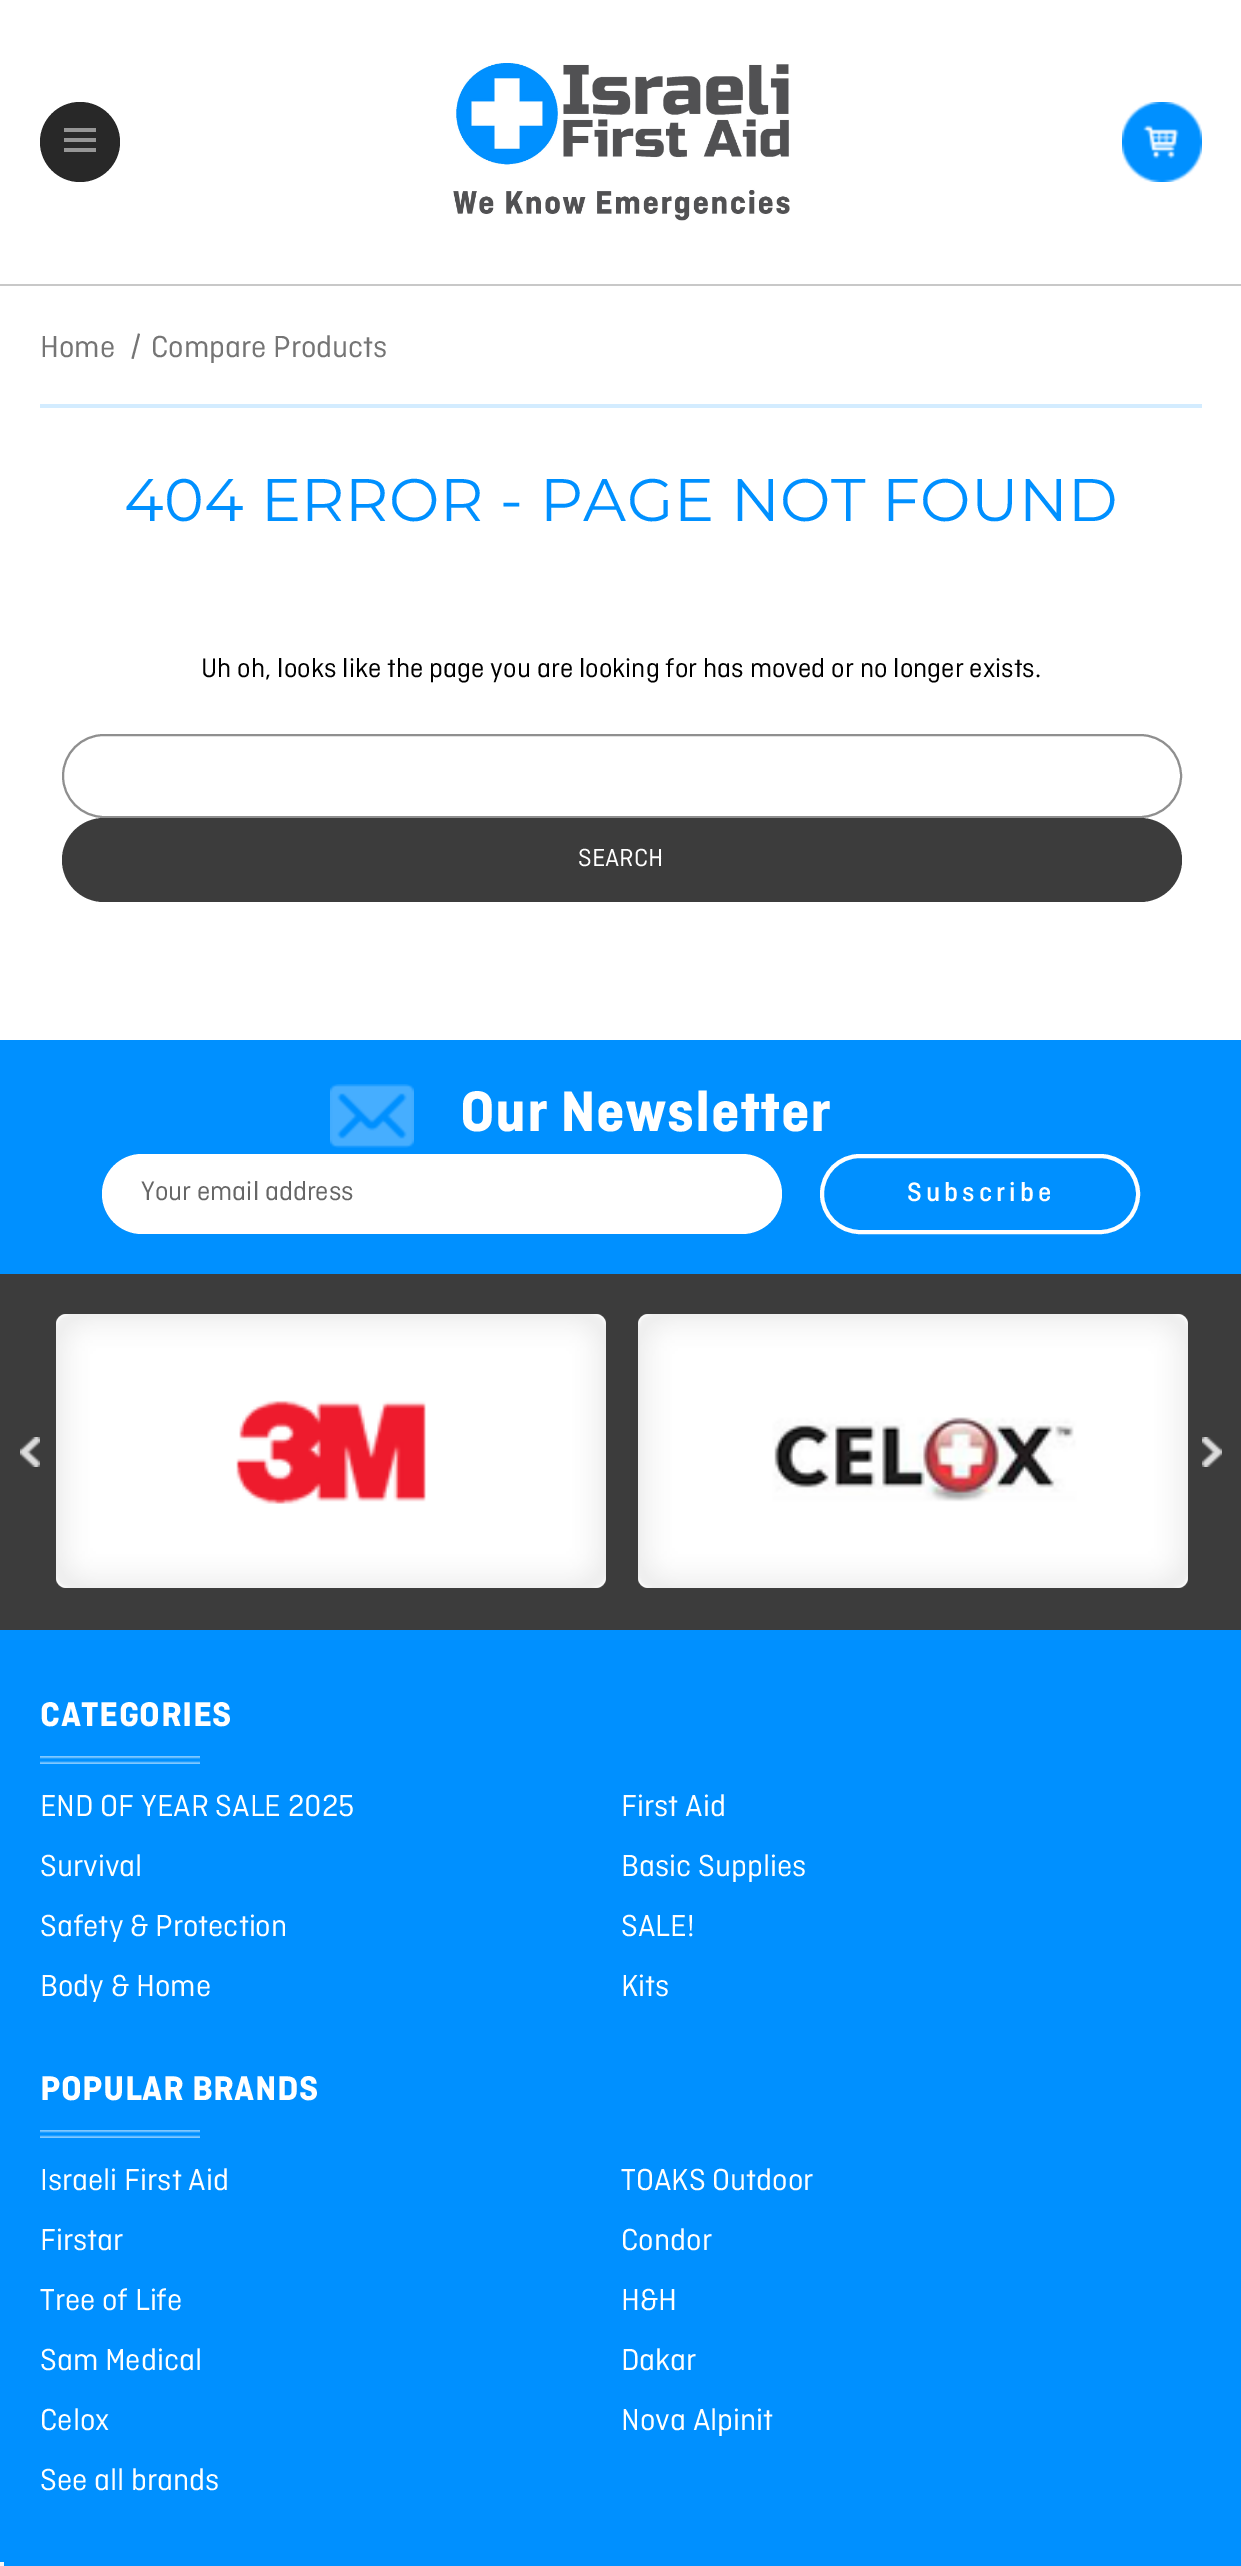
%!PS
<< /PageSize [1241 2566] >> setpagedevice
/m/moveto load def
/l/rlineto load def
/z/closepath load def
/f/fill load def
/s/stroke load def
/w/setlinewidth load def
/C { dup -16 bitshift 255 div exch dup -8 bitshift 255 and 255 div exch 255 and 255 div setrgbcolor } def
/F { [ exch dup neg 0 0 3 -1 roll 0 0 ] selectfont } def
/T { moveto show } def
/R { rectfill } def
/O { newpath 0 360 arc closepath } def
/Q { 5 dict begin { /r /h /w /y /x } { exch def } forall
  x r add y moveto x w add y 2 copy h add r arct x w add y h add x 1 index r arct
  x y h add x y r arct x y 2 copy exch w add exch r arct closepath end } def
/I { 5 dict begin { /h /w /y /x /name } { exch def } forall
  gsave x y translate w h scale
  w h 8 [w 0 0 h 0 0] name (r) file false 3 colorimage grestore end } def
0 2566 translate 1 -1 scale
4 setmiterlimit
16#FFFFFF C
0 0 1241 2566 R
16#C8C8C8 C
0 284 1241 2 R
16#282828 C
80 142 40 O f
16#969696 C
64 138 32 4 R
64 128 32 4 R
64 148 32 4 R
(1.rgb) 453 63 337 158 I
(2.rgb) 1122 102 80 80 I
16#D3ECFF C
40 404 1162 4 R
/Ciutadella-Regular 32 F
16#757575 C
(Home) 40 357 T
138 333.5 m 2 .5 l -6.5 25 l -2 -.5 l z f
(Compare Products) 151 357 T
/Montserrat-Regular 60 F
16#0090FF C
124 521 m .5 0 (404 ERROR - PAGE NOT FOUND) ashow
/Ciutadella-Regular 28 F
16#000000 C
(Uh oh, looks like the page you are looking for has moved or no longer exists.) 201 677 T
16#8F8F8F C
2 w
63 735 1118 82 41 Q s
16#3C3C3C C
62 818 1120 84 42 Q f
/Ciutadella-Regular 26 F
16#FFFFFF C
(SEARCH) 578 866 T
16#0090FF C
0 1040 1241 1526 R
(3.rgb) 330 1084 84 64 I
/Ciutadella-Bold 60 F
16#FFFFFF C
460 1131 m .5 0 (Our Newsletter) ashow
102 1154 680 80 40 Q f
/Ciutadella-Regular 28 F
16#666666 C
(Your email address) 141 1200 T
16#FFFFFF C
4 w
822 1156 316 76 38 Q s
/Ciutadella-Medium 28 F
907 1201 m 4 0 (Subscribe) ashow
16#3C3C3C C
0 1274 1241 356 R
(4.rgb) 20 1437 20 30 I
16#FFFFFF C
56 1314 550 274 10 Q f
(5.rgb) 56 1314 550 274 I
638 1314 550 274 10 Q f
(6.rgb) 638 1314 550 274 I
(7.rgb) 1202 1437 20 30 I
(8.rgb) 40 1756 160 8 I
/Ciutadella-Bold 36 F
40 1726 m .5 0 (CATEGORIES) ashow
/Ciutadella-Regular 32 F
(END OF YEAR SALE 2025) 40 1816 T
(First Aid) 621 1816 T
(Survival) 40 1876 T
(Basic Supplies) 621 1876 T
(Safety & Protection) 40 1936 T
(SALE!) 621 1936 T
(Body & Home) 40 1996 T
(Kits) 621 1996 T
(8.rgb) 40 2130 160 8 I
/Ciutadella-Bold 36 F
40 2100 m .5 0 (POPULAR BRANDS) ashow
/Ciutadella-Regular 32 F
(Israeli First Aid) 40 2190 T
(TOAKS Outdoor) 621 2190 T
(Firstar) 40 2250 T
(Condor) 621 2250 T
(Tree of Life) 40 2310 T
(H&H) 621 2310 T
(Sam Medical) 40 2370 T
(Dakar) 621 2370 T
(Celox) 40 2430 T
(Nova Alpinit) 621 2430 T
(See all brands) 40 2490 T
16#F5F5F5 C
0 2562 4 4 R
showpage
